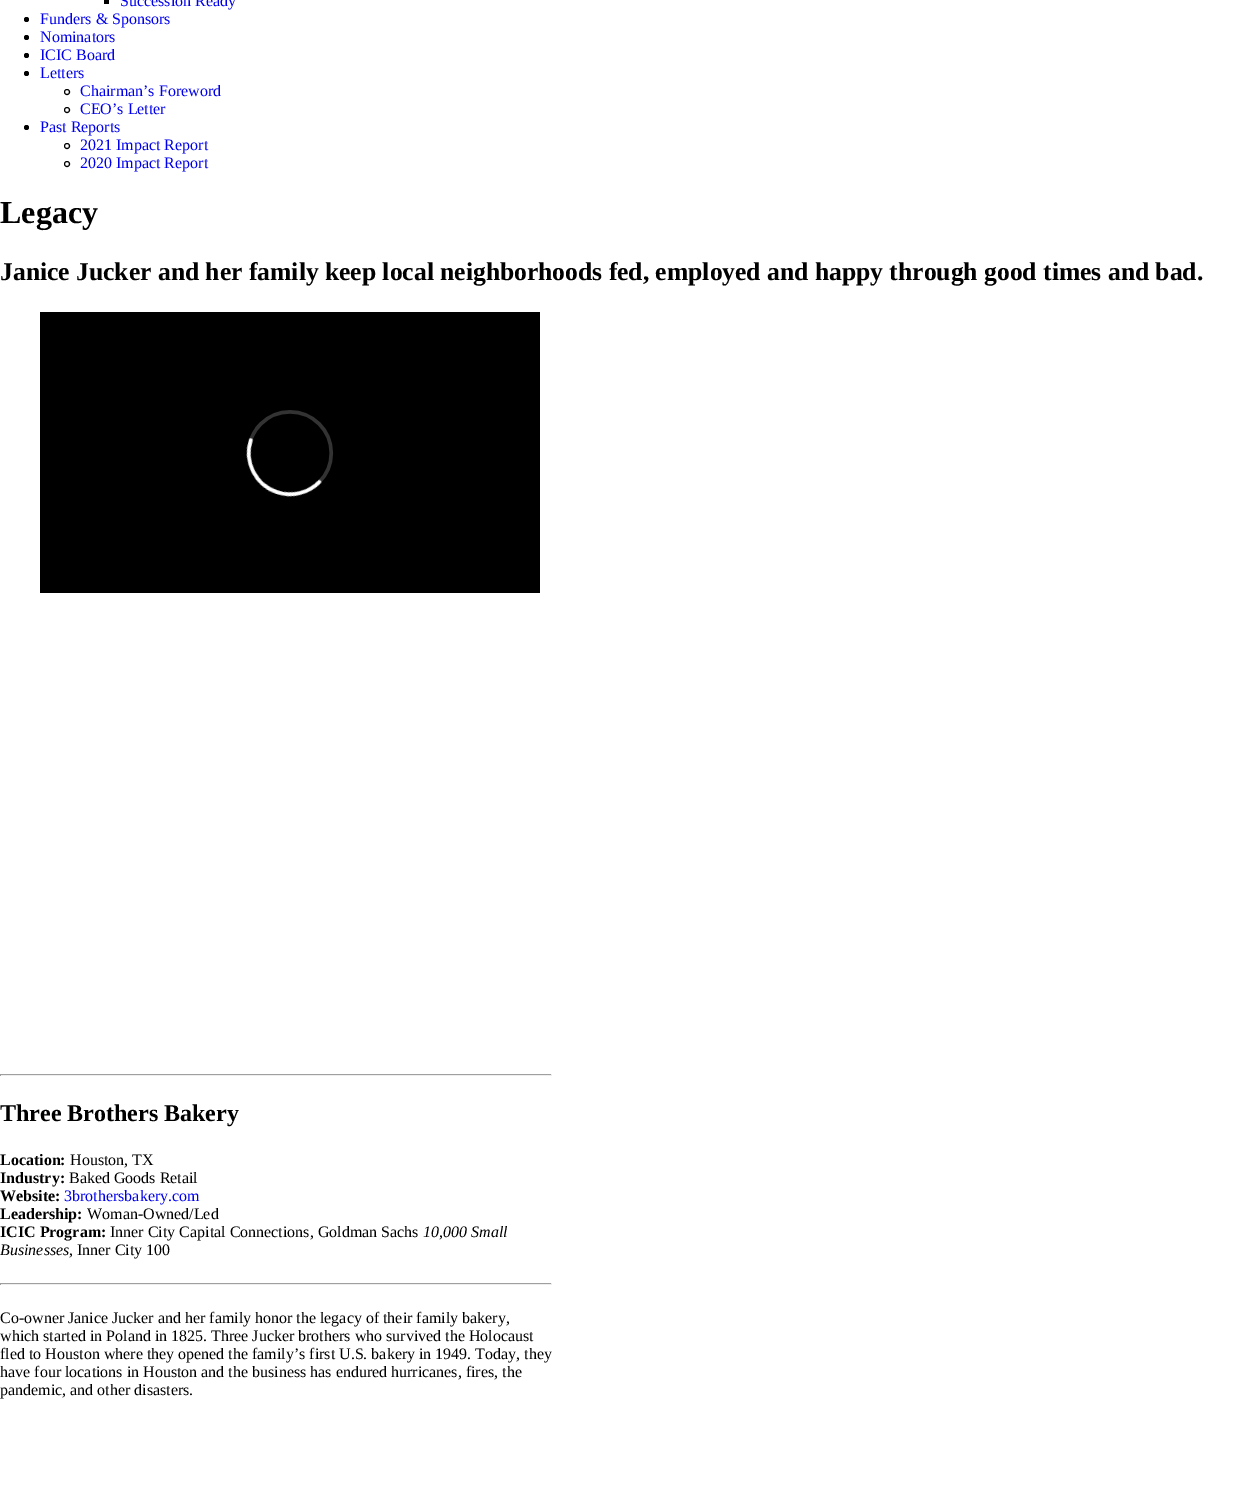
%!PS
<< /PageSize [1256 1489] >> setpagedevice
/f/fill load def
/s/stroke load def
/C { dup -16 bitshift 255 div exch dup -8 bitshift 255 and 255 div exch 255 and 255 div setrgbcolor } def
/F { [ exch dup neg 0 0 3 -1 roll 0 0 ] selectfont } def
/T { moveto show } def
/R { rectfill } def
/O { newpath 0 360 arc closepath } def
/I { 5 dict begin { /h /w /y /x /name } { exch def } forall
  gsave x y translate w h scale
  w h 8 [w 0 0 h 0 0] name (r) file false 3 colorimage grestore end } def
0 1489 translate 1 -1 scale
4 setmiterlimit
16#FFFFFF C
0 0 1256 1489 R
16#000000 C
104 0 5 4 R
/LiberationSerif-Regular 16 F
16#0000EE C
(Succession Ready) 120 6 T
16#000000 C
26.5 19.5 2.5 O f
16#0000EE C
(Funders & Sponsors) 40 24 T
16#000000 C
26.5 37.5 2.5 O f
16#0000EE C
(Nominators) 40 42 T
16#000000 C
26.5 55.5 2.5 O f
16#0000EE C
(ICIC Board) 40 60 T
16#000000 C
26.5 73.5 2.5 O f
16#0000EE C
(Letters) 40 78 T
16#000000 C
67 92 2.5 O s
16#0000EE C
(Chairman’s Foreword) 80 96 T
16#000000 C
67 110 2.5 O s
16#0000EE C
(CEO’s Letter) 80 114 T
16#000000 C
26.5 127.5 2.5 O f
16#0000EE C
(Past Reports) 40 132 T
16#000000 C
67 146 2.5 O s
16#0000EE C
(2021 Impact Report) 80 150 T
16#000000 C
67 164 2.5 O s
16#0000EE C
(2020 Impact Report) 80 168 T
/LiberationSerif-Bold 32 F
16#000000 C
(Legacy) 0 223 T
/LiberationSerif-Bold 25.6 F
(Janice Jucker and her family keep local neighborhoods fed, employed and happy through good times and bad.) 0 280 T
(1.rgb) 40 312 500 281 I
16#9F9F9F C
0 1074 552 1 R
16#EEEEEE C
551 1074 1 2 R
0 1075 552 1 R
16#9F9F9F C
0 1074 1 2 R
/LiberationSerif-Bold 24 F
16#000000 C
(Three Brothers Bakery) 0 1121 T
/LiberationSerif-Bold 16 F
(Location:) 0 1165 T
/LiberationSerif-Regular 16 F
(Houston, TX) 70 1165 T
/LiberationSerif-Bold 16 F
(Industry:) 0 1183 T
/LiberationSerif-Regular 16 F
(Baked Goods Retail) 69 1183 T
/LiberationSerif-Bold 16 F
(Website:) 0 1201 T
/LiberationSerif-Regular 16 F
16#0000EE C
(3brothersbakery.com) 64 1201 T
/LiberationSerif-Bold 16 F
16#000000 C
(Leadership:) 0 1219 T
/LiberationSerif-Regular 16 F
(Woman-Owned/Led) 87 1219 T
/LiberationSerif-Bold 16 F
(ICIC Program:) 0 1237 T
/LiberationSerif-Regular 16 F
(Inner City Capital Connections, Goldman Sachs) 110 1237 T
/LiberationSerif-Italic 16 F
(10,000 Small) 423 1237 T
(Businesses) 0 1255 T
/LiberationSerif-Regular 16 F
(, Inner City 100) 69 1255 T
16#9F9F9F C
0 1283 552 1 R
16#EEEEEE C
551 1283 1 2 R
0 1284 552 1 R
16#9F9F9F C
0 1283 1 2 R
16#000000 C
(Co-owner Janice Jucker and her family honor the legacy of their family bakery,) 0 1323 T
(which started in Poland in 1825. Three Jucker brothers who survived the Holocaust) 0 1341 T
(fled to Houston where they opened the family’s first U.S. bakery in 1949. Today, they) 0 1359 T
(have four locations in Houston and the business has endured hurricanes, fires, the) 0 1377 T
(pandemic, and other disasters.) 0 1395 T
showpage
